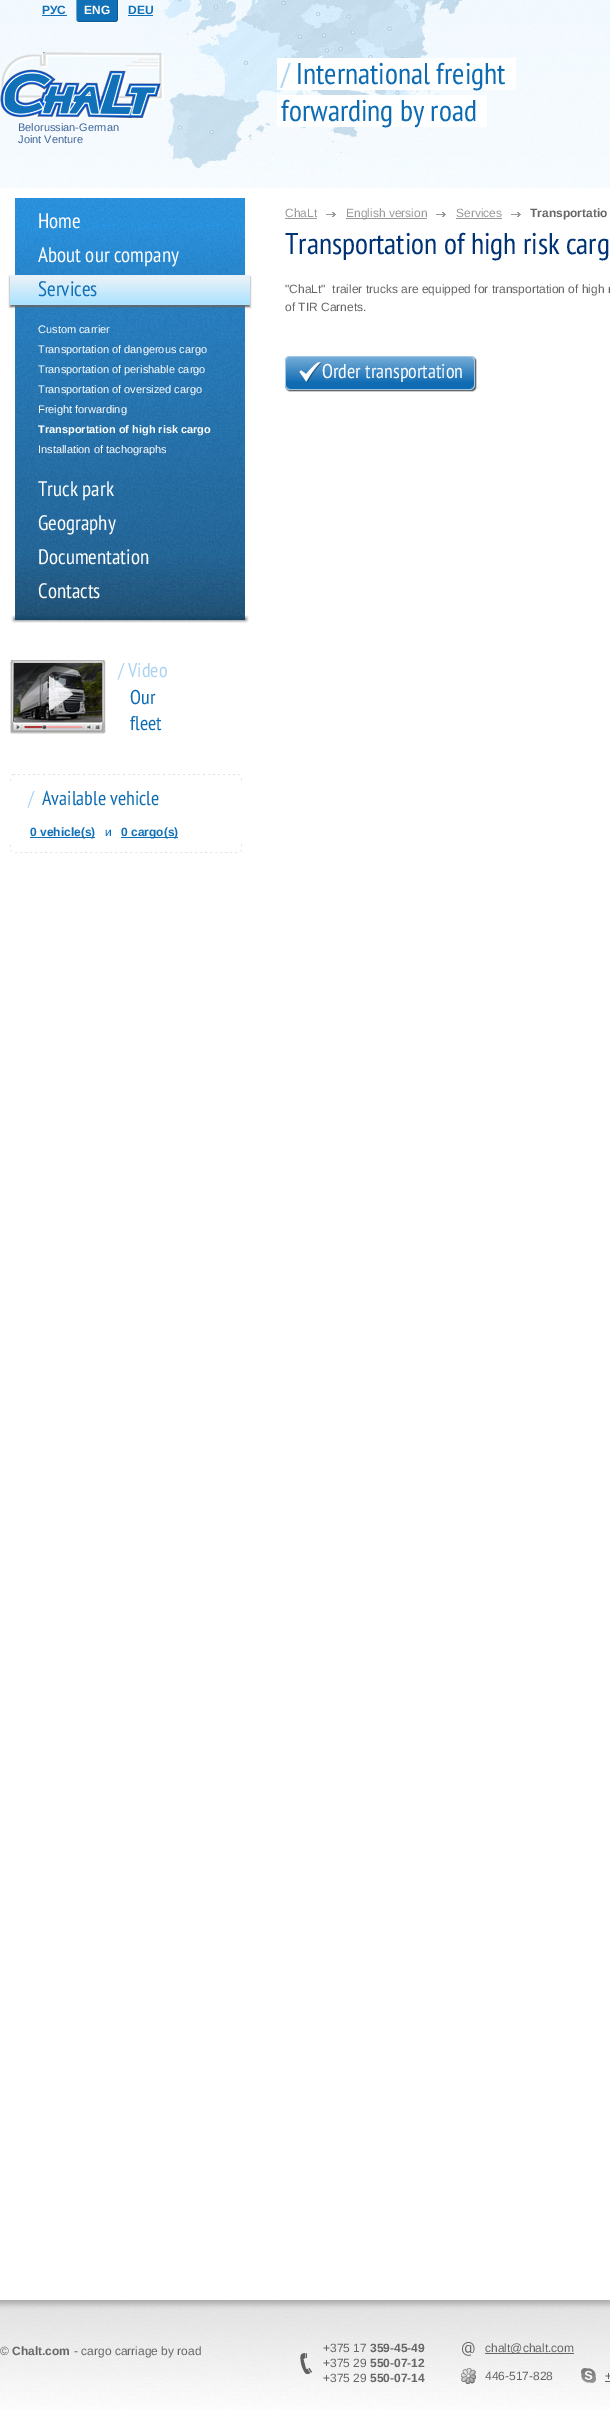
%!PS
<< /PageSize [610 2424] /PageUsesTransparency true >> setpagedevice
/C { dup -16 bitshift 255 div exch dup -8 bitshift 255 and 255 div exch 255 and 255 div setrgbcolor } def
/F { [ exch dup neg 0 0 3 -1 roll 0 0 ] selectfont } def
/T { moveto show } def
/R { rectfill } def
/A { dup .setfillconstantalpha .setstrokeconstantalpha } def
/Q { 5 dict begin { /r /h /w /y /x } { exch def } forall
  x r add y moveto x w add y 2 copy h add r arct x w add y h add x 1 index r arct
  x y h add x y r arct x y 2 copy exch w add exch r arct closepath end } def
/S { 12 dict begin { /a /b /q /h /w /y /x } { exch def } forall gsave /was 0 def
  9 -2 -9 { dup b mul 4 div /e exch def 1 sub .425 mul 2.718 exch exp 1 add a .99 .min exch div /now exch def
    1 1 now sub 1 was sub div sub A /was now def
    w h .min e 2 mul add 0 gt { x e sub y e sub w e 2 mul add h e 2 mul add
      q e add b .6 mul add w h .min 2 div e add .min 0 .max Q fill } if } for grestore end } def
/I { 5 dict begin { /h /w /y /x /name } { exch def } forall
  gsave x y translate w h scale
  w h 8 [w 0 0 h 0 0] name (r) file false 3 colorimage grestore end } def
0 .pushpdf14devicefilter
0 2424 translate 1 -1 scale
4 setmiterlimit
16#FFFFFF C
0 0 610 2424 R
(1.rgb) 0 0 610 188 I
(2.rgb) 142 0 321 177 I
/LiberationSans-Bold 12 F
16#1070B8 C
(РУС) 42 14 T
42 15 25 1 R
(3.rgb) 76 0 43 23 I
16#FFFFFF C
(ENG) 84 14 T
16#1070B8 C
(DEU) 128 14 T
128 15 25 1 R
(4.rgb) 0 52 164 67 I
/LiberationSans-Regular 11 F
16#3F6598 C
(Belorussian-German) 18 131 T
(Joint Venture) 18 143 T
16#FFFFFF C
277 58 239 32 R
/PTSansNarrow-Regular 30 F
16#AAD2F1 C
(/) 281 84 T
16#0D6CB2 C
(International freight) 296 84 T
16#FFFFFF C
277 95 210 32 R
16#0D6CB2 C
(forwarding by road) 281 121 T
(5.rgb) 11 615 238 8 I
(6.rgb) 15 198 230 24 I
(7.rgb) 15 222 230 398 I
/PTSansNarrow-Regular 21 F
16#FFFFFF C
(Home) 38 228 T
(About our company) 38 262 T
16#666666 C
10 277 240 30 0 1 1 S
16#ADE3FE C
10 301 240 4 R
(8.rgb) 10 275 240 26 I
16#1070B8 C
(Services) 38 296 T
/LiberationSans-Regular 11 F
16#FFFFFF C
(Custom carrier) 38 333 T
(Transportation of dangerous cargo) 38 353 T
(Transportation of perishable cargo) 38 373 T
(Transportation of oversized cargo) 38 393 T
(Freight forwarding) 38 413 T
/LiberationSans-Bold 11 F
(Transportation of high risk cargo) 38 433 T
/LiberationSans-Regular 11 F
(Installation of tachographs) 38 453 T
/PTSansNarrow-Regular 21 F
(Truck park) 38 496 T
(Geography) 38 530 T
(Documentation) 38 564 T
(Contacts) 38 598 T
(9.rgb) 10 660 96 74 I
/PTSansNarrow-Regular 20 F
16#AAD2F1 C
(/ Video) 118 677 T
16#0D6CB2 C
(Our) 130 704 T
(fleet) 130 730 T
(10.rgb) 10 774 232 7 I
(11.rgb) 10 844 232 9 I
16#AAD2F1 C
(/) 28 805 T
16#0D6CB2 C
(Available vehicle) 42 805 T
16#1070B8 C
30 837 65 1 R
/LiberationSans-Bold 12 F
(0 vehicle\(s\)) 30 836 T
/LiberationSans-Regular 12 F
(и) 105 836 T
121 837 57 1 R
/LiberationSans-Bold 12 F
(0 cargo\(s\)) 121 836 T
/LiberationSans-Regular 12 F
16#999999 C
(ChaLt) 285 217 T
285 218 32 1 R
(12.rgb) 326 212 10 5 I
346 218 81 1 R
(English version) 346 217 T
(12.rgb) 436 212 10 5 I
(Services) 456 217 T
456 218 46 1 R
(12.rgb) 511 212 10 5 I
/LiberationSans-Bold 12 F
16#666666 C
(Transportatio) 530 217 T
/PTSansNarrow-Regular 30 F
16#003376 C
(Transportation of high risk carg) 285 254 T
/LiberationSans-Regular 12 F
16#666666 C
("ChaLt"  trailer trucks are equipped for transportation of high r) 285 293 T
(of TIR Carnets.) 285 311 T
(13.rgb) 285 356 192 36 I
/PTSansNarrow-Regular 20 F
16#FFFFFF C
(Order transportation) 322 378 T
(14.rgb) 0 2300 610 110 I
/LiberationSans-Regular 12 F
16#666666 C
(©) 0 2355 T
/LiberationSans-Bold 12 F
(Chalt.com) 12 2355 T
/LiberationSans-Regular 12 F
(- cargo carriage by road) 74 2355 T
(15.rgb) 300 2353 12 21 I
(+375 17) 323 2352 T
/LiberationSans-Bold 12 F
(359-45-49) 370 2352 T
/LiberationSans-Regular 12 F
(+375 29) 323 2367 T
/LiberationSans-Bold 12 F
(550-07-12) 370 2367 T
/LiberationSans-Regular 12 F
(+375 29) 323 2382 T
/LiberationSans-Bold 12 F
(550-07-14) 370 2382 T
(16.rgb) 462 2342 13 14 I
485 2353 89 1 R
/LiberationSans-Regular 12 F
(chalt@chalt.com) 485 2352 T
(17.rgb) 461 2368 15 16 I
(446-517-828) 485 2380 T
(18.rgb) 581 2368 15 15 I
(+) 605 2380 T
605 2381 5 1 R
.poppdf14devicefilter showpage
